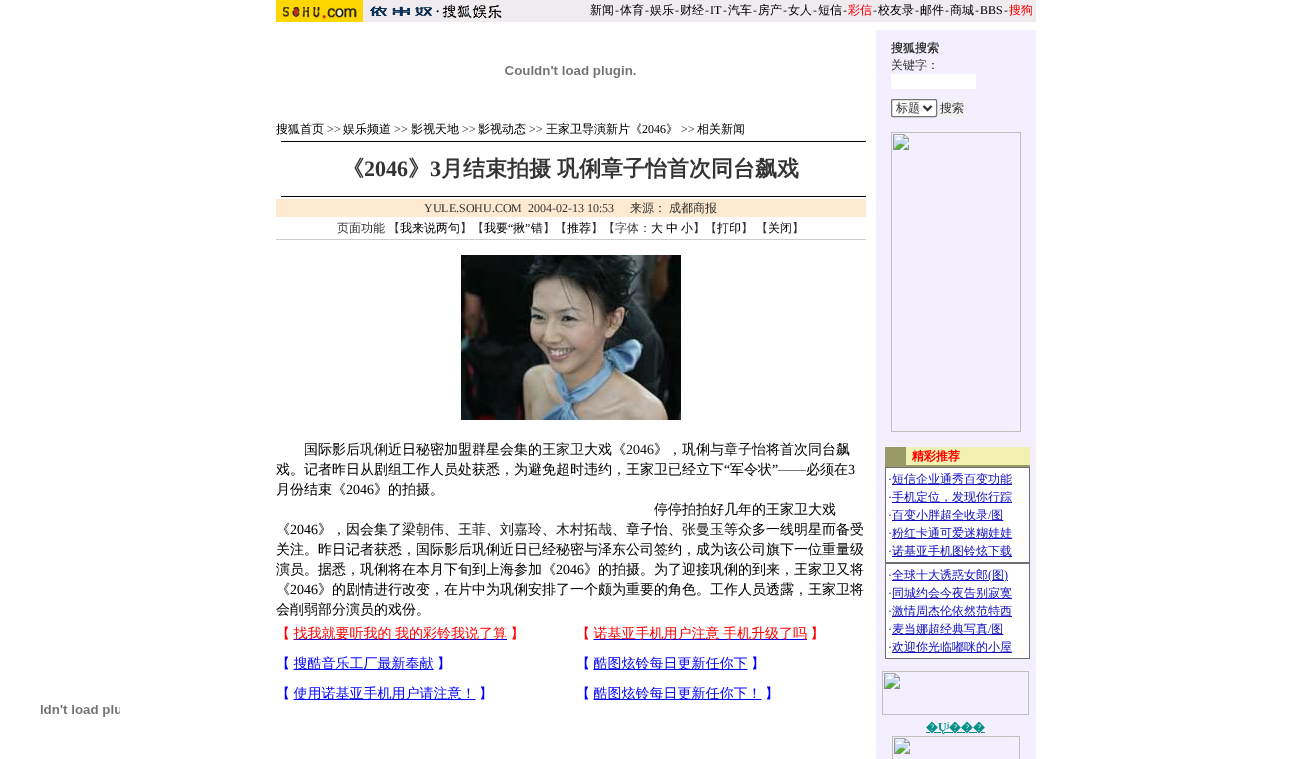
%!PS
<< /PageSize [1311 759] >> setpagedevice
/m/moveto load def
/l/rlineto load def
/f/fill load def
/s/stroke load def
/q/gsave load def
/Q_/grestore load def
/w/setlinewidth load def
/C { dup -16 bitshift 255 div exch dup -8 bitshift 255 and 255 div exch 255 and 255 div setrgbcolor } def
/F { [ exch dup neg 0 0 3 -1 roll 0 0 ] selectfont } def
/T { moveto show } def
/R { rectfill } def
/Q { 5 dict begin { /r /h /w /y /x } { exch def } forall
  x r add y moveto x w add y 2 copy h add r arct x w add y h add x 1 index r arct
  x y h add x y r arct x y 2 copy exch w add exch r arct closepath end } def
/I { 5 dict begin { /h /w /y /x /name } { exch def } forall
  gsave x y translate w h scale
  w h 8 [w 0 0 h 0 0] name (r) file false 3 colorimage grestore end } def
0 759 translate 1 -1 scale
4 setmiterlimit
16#FFFFFF C
0 0 1311 759 R
(1.rgb) 276 0 87 22 I
16#EFEBEF C
363 0 673 22 R
(2.rgb) 370 4 132 15 I
/WenQuanYiZenHei-Medium 12 F
16#000000 C
(新闻) 590 14 T
/LiberationSerif-Regular 12 F
(-) 615 14 T
/WenQuanYiZenHei-Medium 12 F
(体育) 620 14 T
/LiberationSerif-Regular 12 F
(-) 645 14 T
/WenQuanYiZenHei-Medium 12 F
(娱乐) 650 14 T
/LiberationSerif-Regular 12 F
(-) 675 14 T
/WenQuanYiZenHei-Medium 12 F
(财经) 680 14 T
/LiberationSerif-Regular 12 F
(-) 705 14 T
(IT) 710 14 T
(-) 723 14 T
/WenQuanYiZenHei-Medium 12 F
(汽车) 728 14 T
/LiberationSerif-Regular 12 F
(-) 753 14 T
/WenQuanYiZenHei-Medium 12 F
(房产) 758 14 T
/LiberationSerif-Regular 12 F
(-) 783 14 T
/WenQuanYiZenHei-Medium 12 F
(女人) 788 14 T
/LiberationSerif-Regular 12 F
(-) 813 14 T
/WenQuanYiZenHei-Medium 12 F
(短信) 818 14 T
/LiberationSerif-Regular 12 F
(-) 843 14 T
/WenQuanYiZenHei-Medium 12 F
16#FF0000 C
(彩信) 848 14 T
/LiberationSerif-Regular 12 F
16#000000 C
(-) 873 14 T
/WenQuanYiZenHei-Medium 12 F
(校友录) 878 14 T
/LiberationSerif-Regular 12 F
(-) 915 14 T
/WenQuanYiZenHei-Medium 12 F
(邮件) 920 14 T
/LiberationSerif-Regular 12 F
(-) 945 14 T
/WenQuanYiZenHei-Medium 12 F
(商城) 950 14 T
/LiberationSerif-Regular 12 F
(-) 975 14 T
(BBS) 980 14 T
(-) 1004 14 T
/WenQuanYiZenHei-Medium 12 F
16#FF0000 C
(搜狗) 1009 14 T
16#F3EFFF C
876 30 160 729 R
/WenQuanYiZenHei-Bold 12 F
16#333333 C
(搜狐搜索) 891 52 T
/WenQuanYiZenHei-Medium 12 F
(关键字：) 891 69 T
16#FFFFFF C
891 74 85 15 R
891.5 99.5 45 17 1.5 Q q f Q_
16#767676 C
s
16#333333 C
2 w
923.5 106 m 4 4 l 4 -4 l s
(标题) 896 112 T
16#EFEFEF C
940 100 24 17 R
q
940 100 24 17 rectclip
16#333333 C
(搜索) 940 112 T
Q_
(3.rgb) 891 132 130 300 I
(4.rgb) 885 447 145 212 I
(5.rgb) 882 671 147 88 I
(6.rgb) 505 66 131 12 I
16#000000 C
(搜狐首页) 276 133 T
/LiberationSerif-Regular 12 F
16#333333 C
(>>) 327 133 T
/WenQuanYiZenHei-Medium 12 F
16#000000 C
(娱乐频道) 343 133 T
/LiberationSerif-Regular 12 F
16#333333 C
(>>) 394 133 T
/WenQuanYiZenHei-Medium 12 F
16#000000 C
(影视天地) 411 133 T
/LiberationSerif-Regular 12 F
16#333333 C
(>>) 462 133 T
/WenQuanYiZenHei-Medium 12 F
16#000000 C
(影视动态) 478 133 T
/LiberationSerif-Regular 12 F
16#333333 C
(>>) 529 133 T
/WenQuanYiZenHei-Medium 12 F
16#000000 C
(王家卫导演新片《) 546 133 T
/LiberationSerif-Regular 12 F
(2046) 642 133 T
/WenQuanYiZenHei-Medium 12 F
(》) 666 133 T
/LiberationSerif-Regular 12 F
16#333333 C
(>>) 681 133 T
/WenQuanYiZenHei-Medium 12 F
16#000000 C
(相关新闻) 697 133 T
276 141 590 1 R
16#FFFFFF C
276 141 5 1 R
/WenQuanYiZenHei-Bold 22 F
16#333333 C
(《) 342 176 T
/LiberationSerif-Bold 22 F
(2046) 364 176 T
/WenQuanYiZenHei-Bold 22 F
(》) 408 176 T
/LiberationSerif-Bold 22 F
(3) 430 176 T
/WenQuanYiZenHei-Bold 22 F
441 176 m -1 0 32 (月结束拍摄 巩俐章子怡首次同台飙戏) widthshow
16#000000 C
276 196 590 1 R
16#FFFFFF C
276 196 5 1 R
16#FFE9D0 C
276 199 590 18 R
/LiberationSerif-Regular 12 F
16#333333 C
(YULE.SOHU.COM  2004-02-13 10:53) 424 212 T
/WenQuanYiZenHei-Medium 12 F
(来源：) 630 212 T
(成都商报) 669 212 T
(页面功能) 337 232 T
(【) 388 232 T
16#000000 C
(我来说两句) 400 232 T
16#333333 C
(】【) 460 232 T
16#000000 C
(我要) 484 232 T
/LiberationSerif-Regular 12 F
(“) 508 232 T
/WenQuanYiZenHei-Medium 12 F
(揪) 513 232 T
/LiberationSerif-Regular 12 F
(”) 525 232 T
/WenQuanYiZenHei-Medium 12 F
(错) 531 232 T
16#333333 C
(】【) 543 232 T
16#000000 C
(推荐) 567 232 T
16#333333 C
(】【字体：) 591 232 T
16#000000 C
(大) 651 232 T
(中) 666 232 T
(小) 681 232 T
16#333333 C
(】【) 693 232 T
16#000000 C
(打印) 717 232 T
16#333333 C
741 232 m -1 0 32 (】 【) widthshow
16#000000 C
(关闭) 768 232 T
16#333333 C
(】) 792 232 T
16#CCCCCC C
276 239 590 1 R
(7.rgb) 461 255 220 165 I
/WenQuanYiZenHei-Medium 14 F
16#000000 C
(国际影后) 304 454 T
16#191919 C
(巩俐) 360 454 T
16#000000 C
(近日秘密加盟群星会集的) 388 454 T
16#191919 C
(王家卫) 542 454 T
16#000000 C
(大戏《) 584 454 T
/LiberationSerif-Regular 14 F
16#191919 C
(2046) 626 454 T
/WenQuanYiZenHei-Medium 14 F
16#000000 C
(》，巩俐与) 654 454 T
16#191919 C
(章子怡) 724 454 T
16#000000 C
(将首次同台飙) 766 454 T
(戏。记者昨日从剧组工作人员处获悉，为避免超时违约，王家卫已经立下) 276 474 T
/LiberationSerif-Regular 14 F
(“) 724 474 T
/WenQuanYiZenHei-Medium 14 F
(军令状) 730 474 T
/LiberationSerif-Regular 14 F
(”——) 772 474 T
/WenQuanYiZenHei-Medium 14 F
(必须在) 806 474 T
/LiberationSerif-Regular 14 F
(3) 848 474 T
/WenQuanYiZenHei-Medium 14 F
(月份结束《) 276 494 T
/LiberationSerif-Regular 14 F
(2046) 346 494 T
/WenQuanYiZenHei-Medium 14 F
(》的拍摄。) 374 494 T
(停停拍拍好几年的王家卫大戏) 654 514 T
(《) 276 534 T
/LiberationSerif-Regular 14 F
(2046) 290 534 T
/WenQuanYiZenHei-Medium 14 F
(》，因会集了) 318 534 T
16#191919 C
(梁朝伟) 402 534 T
16#000000 C
(、) 444 534 T
16#191919 C
(王菲) 458 534 T
16#000000 C
(、) 486 534 T
16#191919 C
(刘嘉玲) 500 534 T
16#000000 C
(、) 542 534 T
16#191919 C
(木村拓哉) 556 534 T
16#000000 C
(、章子怡、) 612 534 T
16#191919 C
(张曼玉) 682 534 T
16#000000 C
(等众多一线明星而备受) 724 534 T
(关注。昨日记者获悉，国际影后巩俐近日已经秘密与泽东公司签约，成为该公司旗下一位重量级) 276 554 T
(演员。据悉，巩俐将在本月下旬到上海参加《) 276 574 T
/LiberationSerif-Regular 14 F
(2046) 556 574 T
/WenQuanYiZenHei-Medium 14 F
(》的拍摄。为了迎接巩俐的到来，王家卫又将) 584 574 T
(《) 276 594 T
/LiberationSerif-Regular 14 F
(2046) 290 594 T
/WenQuanYiZenHei-Medium 14 F
(》的剧情进行改变，在片中为巩俐安排了一个颇为重要的角色。工作人员透露，王家卫将) 318 594 T
(会削弱部分演员的戏份。) 276 614 T
(8.rgb) 284 626 532 44 I
(9.rgb) 284 686 487 14 I
(10.rgb) 40 705 80 12 I
showpage
